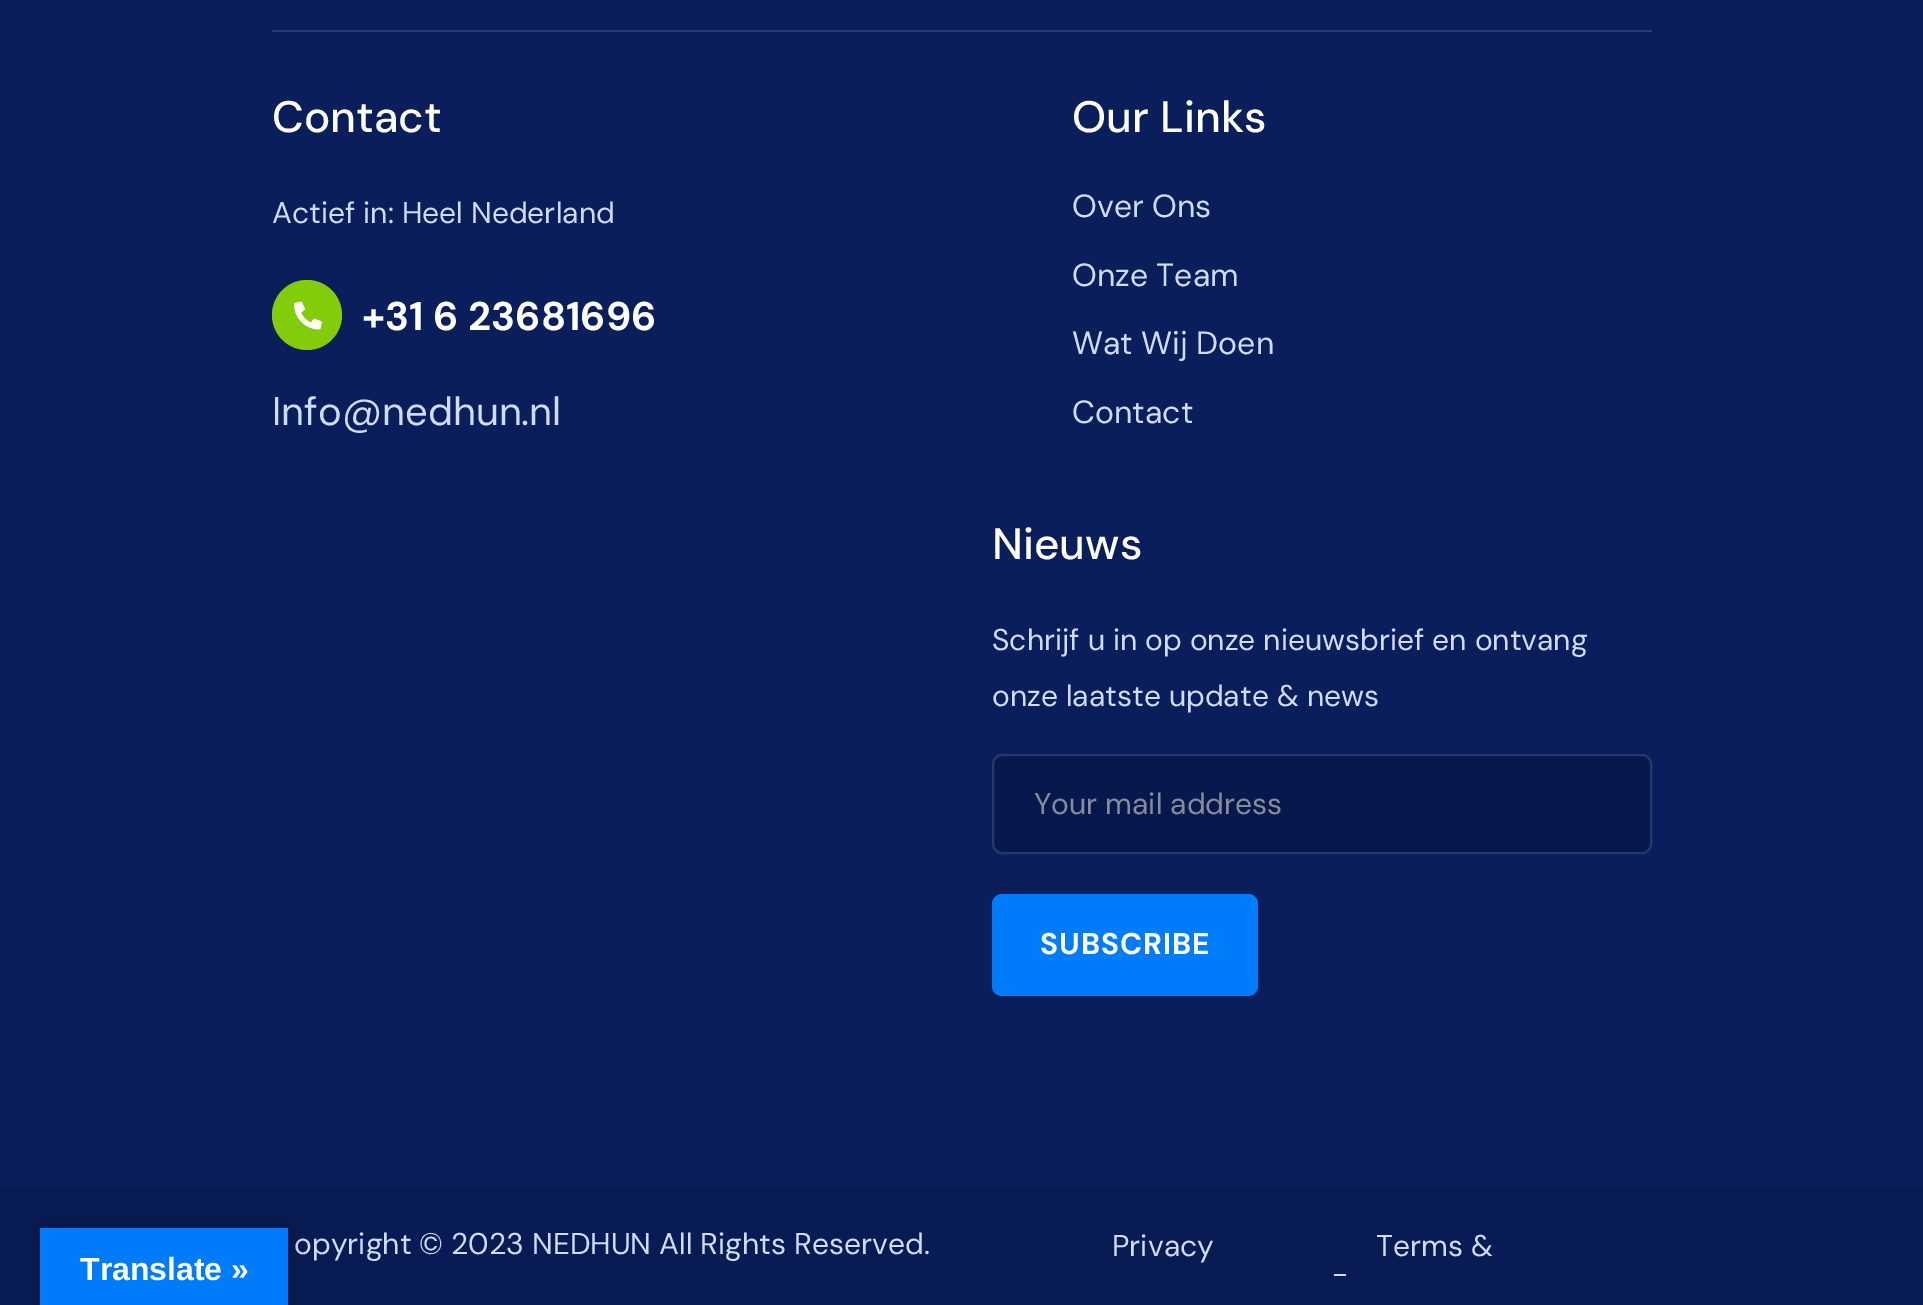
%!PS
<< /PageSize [1923 1305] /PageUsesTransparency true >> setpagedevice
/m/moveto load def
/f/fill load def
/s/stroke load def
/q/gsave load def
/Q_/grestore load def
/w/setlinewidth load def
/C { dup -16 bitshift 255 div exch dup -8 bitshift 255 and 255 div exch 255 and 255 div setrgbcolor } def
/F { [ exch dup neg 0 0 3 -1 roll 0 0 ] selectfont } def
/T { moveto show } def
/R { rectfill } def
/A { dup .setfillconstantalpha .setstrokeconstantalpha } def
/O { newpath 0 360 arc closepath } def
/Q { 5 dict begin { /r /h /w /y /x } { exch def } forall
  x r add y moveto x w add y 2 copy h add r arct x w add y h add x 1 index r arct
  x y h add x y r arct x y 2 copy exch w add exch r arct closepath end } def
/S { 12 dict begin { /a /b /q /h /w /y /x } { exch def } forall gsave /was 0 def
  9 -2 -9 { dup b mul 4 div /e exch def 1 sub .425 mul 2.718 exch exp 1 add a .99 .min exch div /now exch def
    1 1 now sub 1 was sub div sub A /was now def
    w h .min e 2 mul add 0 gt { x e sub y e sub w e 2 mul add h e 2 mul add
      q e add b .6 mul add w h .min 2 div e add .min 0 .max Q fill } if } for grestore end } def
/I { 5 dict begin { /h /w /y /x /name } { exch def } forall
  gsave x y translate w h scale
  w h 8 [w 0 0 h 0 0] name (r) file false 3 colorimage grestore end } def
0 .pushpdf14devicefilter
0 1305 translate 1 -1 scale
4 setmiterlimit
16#0A1E5B C
0 0 1923 1305 R
16#263C7C C
272 30 1380 2 R
/DMSans-Medium 44 F
16#FFFFFF C
(Contact) 272 132 T
/DMSans-Regular 30 F
16#D0DBF8 C
(Actief in: Heel Nederland) 272 223 T
16#82CC09 C
307 315 35 O f
(1.rgb) 294 301 28 29 I
/DMSans-Bold 40 F
16#FFFFFF C
(+31 6 23681696) 362 330 T
/DMSans-Regular 40 F
16#D0DBF8 C
(Info@nedhun.nl) 272 425 T
/DMSans-Medium 44 F
16#FFFFFF C
(Our Links) 1072 132 T
/DMSans-Regular 32 F
16#D0DBF8 C
(Over Ons) 1072 217 T
(Onze Team) 1072 286 T
(Wat Wij Doen) 1072 354 T
(Contact) 1072 423 T
/DMSans-Medium 44 F
16#FFFFFF C
(Nieuws) 992 559 T
/DMSans-Regular 30 F
16#D0DBF8 C
(Schrijf u in op onze nieuwsbrief en ontvang) 992 650 T
(onze laatste update & news) 992 706 T
16#06184C C
993 755 658 98 9 Q q f Q_
16#25386D C
2 w
s
16#878C9A C
(Your mail address) 1034 814 T
16#007CFB C
992 894 266 102 10 Q f
/DMSans-Bold 30 F
16#FFFFFF C
1040 954 m 1 0 (SUBSCRIBE) ashow
16#081B54 C
0 1186 1923 119 R
/DMSans-Regular 30 F
16#D0DBF8 C
(opyright © 2023 NEDHUN All Rights Reserved.) 294 1254 T
(Privacy) 1112 1256 T
1334 1274 12 2 R
(Terms &) 1376 1256 T
16#000000 C
40 1228 248 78 0 9 .3 S
16#007CFB C
40 1228 248 77 R
/LiberationSans-Bold 32 F
16#FFFFFF C
(Translate ») 80 1280 T
.poppdf14devicefilter showpage
